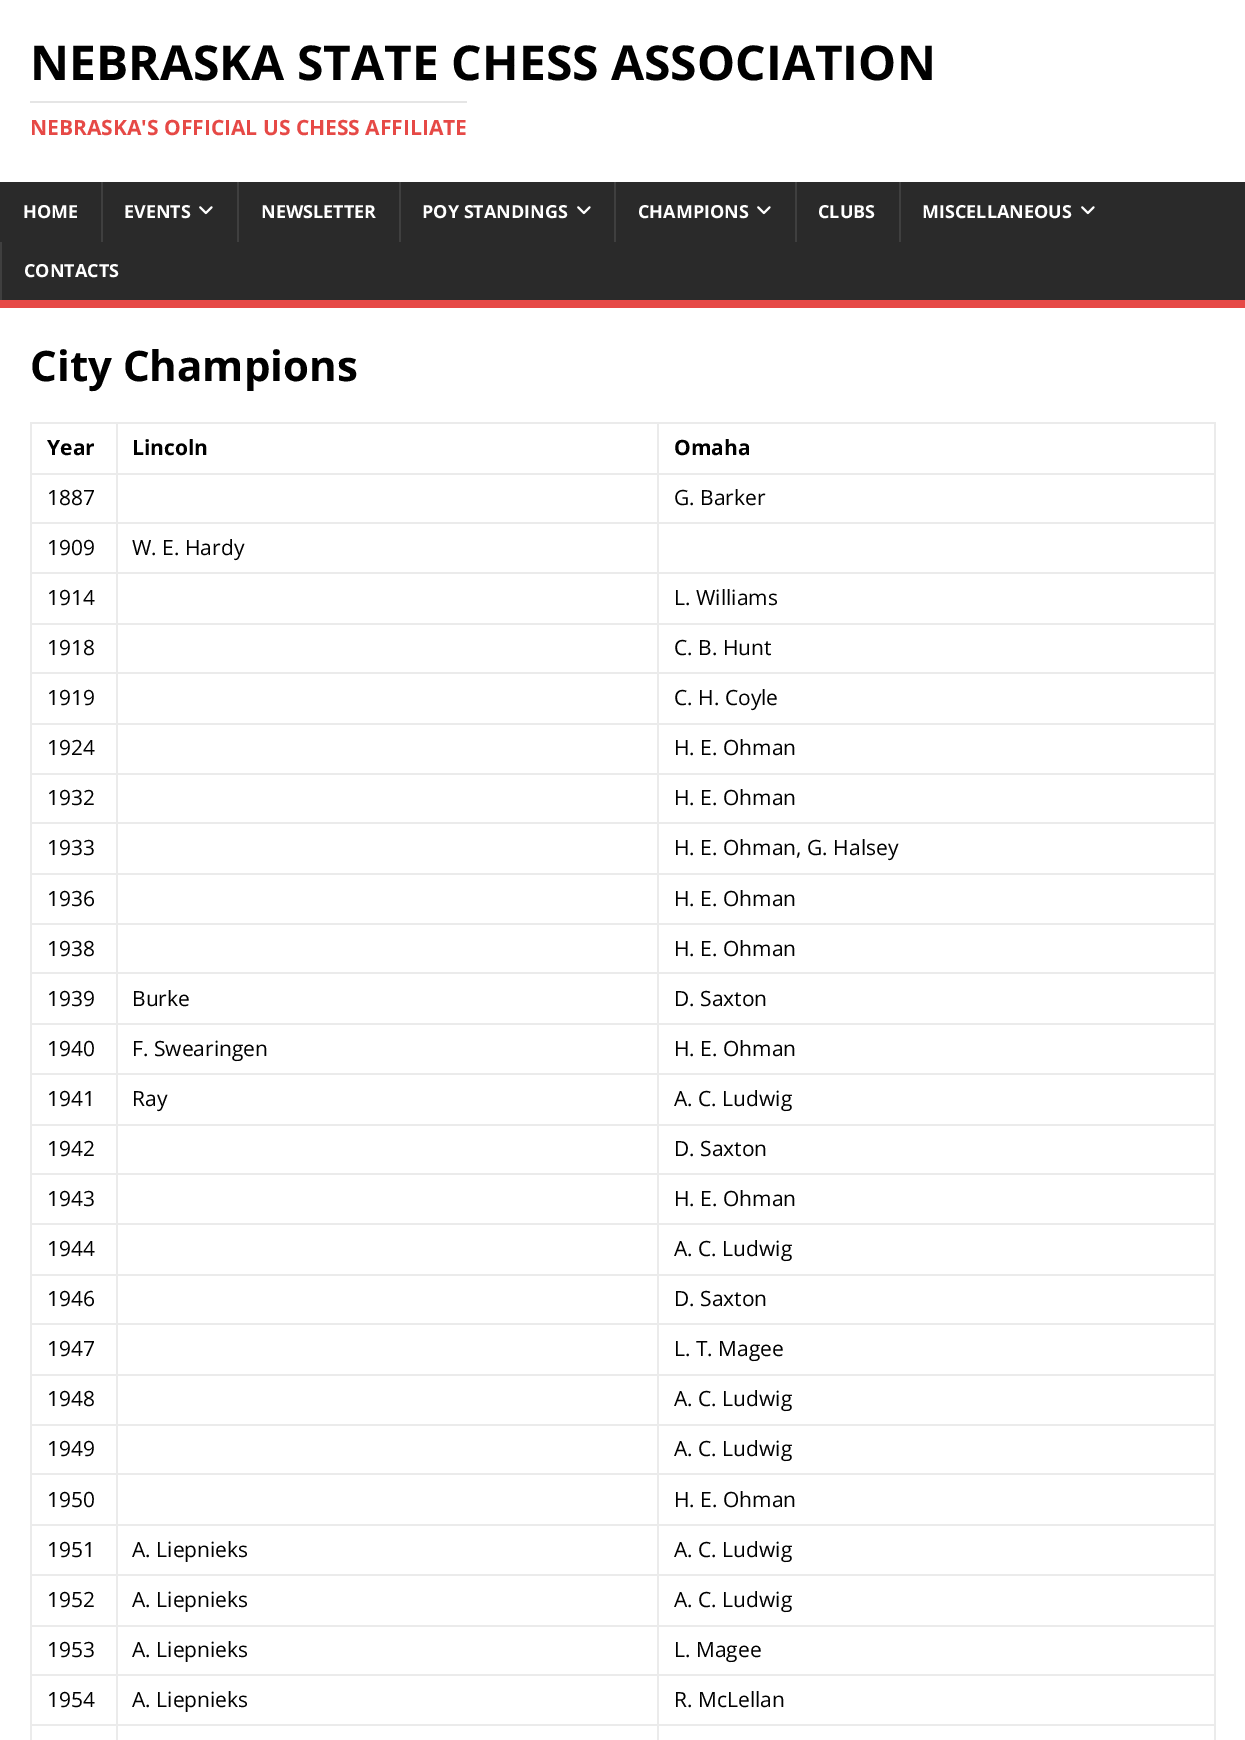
%!PS
<< /PageSize [1245 1740] >> setpagedevice
/C { dup -16 bitshift 255 div exch dup -8 bitshift 255 and 255 div exch 255 and 255 div setrgbcolor } def
/F { [ exch dup neg 0 0 3 -1 roll 0 0 ] selectfont } def
/T { moveto show } def
/R { rectfill } def
/I { 5 dict begin { /h /w /y /x /name } { exch def } forall
  gsave x y translate w h scale
  w h 8 [w 0 0 h 0 0] name (r) file false 3 colorimage grestore end } def
0 1740 translate 1 -1 scale
4 setmiterlimit
16#FFFFFF C
0 0 1245 1740 R
/OpenSans-Bold 48 F
16#000000 C
(NEBRASKA STATE CHESS ASSOCIATION) 30 80 T
16#E5E5E5 C
30 101 437 2 R
/OpenSans-Bold 21 F
16#E64946 C
(NEBRASKA'S OFFICIAL US CHESS AFFILIATE) 30 135 T
16#2A2A2A C
0 182 1245 118 R
16#E64946 C
0 300 1245 8 R
/OpenSans-Bold 18 F
16#FFFFFF C
(HOME) 23 218 T
16#3F3F3F C
101 182 2 60 R
16#FFFFFF C
(EVENTS) 124 218 T
(1.rgb) 199 206 14 9 I
16#3F3F3F C
237 182 2 60 R
16#FFFFFF C
(NEWSLETTER) 261 218 T
16#3F3F3F C
399 182 2 60 R
16#FFFFFF C
(POY STANDINGS) 422 218 T
(1.rgb) 577 206 14 9 I
16#3F3F3F C
614 182 2 60 R
16#FFFFFF C
(CHAMPIONS) 638 218 T
(1.rgb) 757 206 14 9 I
16#3F3F3F C
795 182 2 60 R
16#FFFFFF C
(CLUBS) 818 218 T
16#3F3F3F C
899 182 2 60 R
16#FFFFFF C
(MISCELLANEOUS) 922 218 T
(1.rgb) 1081 206 14 9 I
16#3F3F3F C
0 242 2 58 R
16#FFFFFF C
(CONTACTS) 24 277 T
/OpenSans-Bold 42 F
16#000000 C
(City Champions) 30 381 T
16#EBEBEB C
30 422 1185 2 R
30 422 2 1318 R
116 1724 2 16 R
657 1724 2 16 R
1214 422 2 1318 R
657 1724 558 2 R
657 1674 2 51 R
657 1674 558 2 R
657 1625 2 51 R
657 1625 558 2 R
657 1574 2 52 R
657 1574 558 2 R
657 1524 2 51 R
657 1524 558 2 R
657 1473 2 53 R
657 1473 558 2 R
657 1424 2 51 R
657 1424 558 2 R
657 1374 2 51 R
657 1374 558 2 R
657 1323 2 53 R
657 1323 558 2 R
657 1274 2 51 R
657 1274 558 2 R
657 1223 2 52 R
657 1223 558 2 R
657 1173 2 51 R
657 1173 558 2 R
657 1124 2 51 R
657 1124 558 2 R
657 1073 2 52 R
657 1073 558 2 R
657 1023 2 51 R
657 1023 558 2 R
657 972 2 53 R
657 972 558 2 R
657 923 2 51 R
657 923 558 2 R
657 873 2 51 R
657 873 558 2 R
657 822 2 53 R
657 822 558 2 R
657 773 2 51 R
657 773 558 2 R
657 723 2 51 R
657 723 558 2 R
657 672 2 53 R
657 672 558 2 R
657 623 2 51 R
657 623 558 2 R
657 572 2 52 R
657 572 558 2 R
657 522 2 51 R
657 522 558 2 R
657 473 2 51 R
657 473 558 2 R
657 422 2 52 R
116 1724 543 2 R
116 1674 2 51 R
116 1674 543 2 R
116 1625 2 51 R
116 1625 543 2 R
116 1574 2 52 R
116 1574 543 2 R
116 1524 2 51 R
116 1524 543 2 R
116 1473 2 53 R
116 1473 543 2 R
116 1424 2 51 R
116 1424 543 2 R
116 1374 2 51 R
116 1374 543 2 R
116 1323 2 53 R
116 1323 543 2 R
116 1274 2 51 R
116 1274 543 2 R
116 1223 2 52 R
116 1223 543 2 R
116 1173 2 51 R
116 1173 543 2 R
116 1124 2 51 R
116 1124 543 2 R
116 1073 2 52 R
116 1073 543 2 R
116 1023 2 51 R
116 1023 543 2 R
116 972 2 53 R
116 972 543 2 R
116 923 2 51 R
116 923 543 2 R
116 873 2 51 R
116 873 543 2 R
116 822 2 53 R
116 822 543 2 R
116 773 2 51 R
116 773 543 2 R
116 723 2 51 R
116 723 543 2 R
116 672 2 53 R
116 672 543 2 R
116 623 2 51 R
116 623 543 2 R
116 572 2 52 R
116 572 543 2 R
116 522 2 51 R
116 522 543 2 R
116 473 2 51 R
116 473 543 2 R
116 422 2 52 R
30 473 87 2 R
/OpenSans-Bold 21 F
16#000000 C
(Year) 47 455 T
(Lincoln) 132 455 T
(Omaha) 674 455 T
16#EBEBEB C
30 522 87 2 R
/OpenSans-Regular 21 F
16#000000 C
(1887) 47 505 T
(G. Barker) 674 505 T
16#EBEBEB C
30 572 87 2 R
16#000000 C
(1909) 47 555 T
(W. E. Hardy) 132 555 T
16#EBEBEB C
30 623 87 2 R
16#000000 C
(1914) 47 605 T
(L. Williams) 674 605 T
16#EBEBEB C
30 672 87 2 R
16#000000 C
(1918) 47 655 T
(C. B. Hunt) 674 655 T
16#EBEBEB C
30 723 87 2 R
16#000000 C
(1919) 47 705 T
(C. H. Coyle) 674 705 T
16#EBEBEB C
30 773 87 2 R
16#000000 C
(1924) 47 755 T
(H. E. Ohman) 674 755 T
16#EBEBEB C
30 822 87 2 R
16#000000 C
(1932) 47 805 T
(H. E. Ohman) 674 805 T
16#EBEBEB C
30 873 87 2 R
16#000000 C
(1933) 47 855 T
(H. E. Ohman, G. Halsey) 674 855 T
16#EBEBEB C
30 923 87 2 R
16#000000 C
(1936) 47 906 T
(H. E. Ohman) 674 906 T
16#EBEBEB C
30 972 87 2 R
16#000000 C
(1938) 47 956 T
(H. E. Ohman) 674 956 T
16#EBEBEB C
30 1023 87 2 R
16#000000 C
(1939) 47 1006 T
(Burke) 132 1006 T
(D. Saxton) 674 1006 T
16#EBEBEB C
30 1073 87 2 R
16#000000 C
(1940) 47 1056 T
(F. Swearingen) 132 1056 T
(H. E. Ohman) 674 1056 T
16#EBEBEB C
30 1124 87 2 R
16#000000 C
(1941) 47 1106 T
(Ray) 132 1106 T
(A. C. Ludwig) 674 1106 T
16#EBEBEB C
30 1173 87 2 R
16#000000 C
(1942) 47 1156 T
(D. Saxton) 674 1156 T
16#EBEBEB C
30 1223 87 2 R
16#000000 C
(1943) 47 1206 T
(H. E. Ohman) 674 1206 T
16#EBEBEB C
30 1274 87 2 R
16#000000 C
(1944) 47 1256 T
(A. C. Ludwig) 674 1256 T
16#EBEBEB C
30 1323 87 2 R
16#000000 C
(1946) 47 1306 T
(D. Saxton) 674 1306 T
16#EBEBEB C
30 1374 87 2 R
16#000000 C
(1947) 47 1356 T
(L. T. Magee) 674 1356 T
16#EBEBEB C
30 1424 87 2 R
16#000000 C
(1948) 47 1406 T
(A. C. Ludwig) 674 1406 T
16#EBEBEB C
30 1473 87 2 R
16#000000 C
(1949) 47 1456 T
(A. C. Ludwig) 674 1456 T
16#EBEBEB C
30 1524 87 2 R
16#000000 C
(1950) 47 1507 T
(H. E. Ohman) 674 1507 T
16#EBEBEB C
30 1574 87 2 R
16#000000 C
(1951) 47 1557 T
(A. Liepnieks) 132 1557 T
(A. C. Ludwig) 674 1557 T
16#EBEBEB C
30 1625 87 2 R
16#000000 C
(1952) 47 1607 T
(A. Liepnieks) 132 1607 T
(A. C. Ludwig) 674 1607 T
16#EBEBEB C
30 1674 87 2 R
16#000000 C
(1953) 47 1657 T
(A. Liepnieks) 132 1657 T
(L. Magee) 674 1657 T
16#EBEBEB C
30 1724 87 2 R
16#000000 C
(1954) 47 1707 T
(A. Liepnieks) 132 1707 T
(R. McLellan) 674 1707 T
showpage
